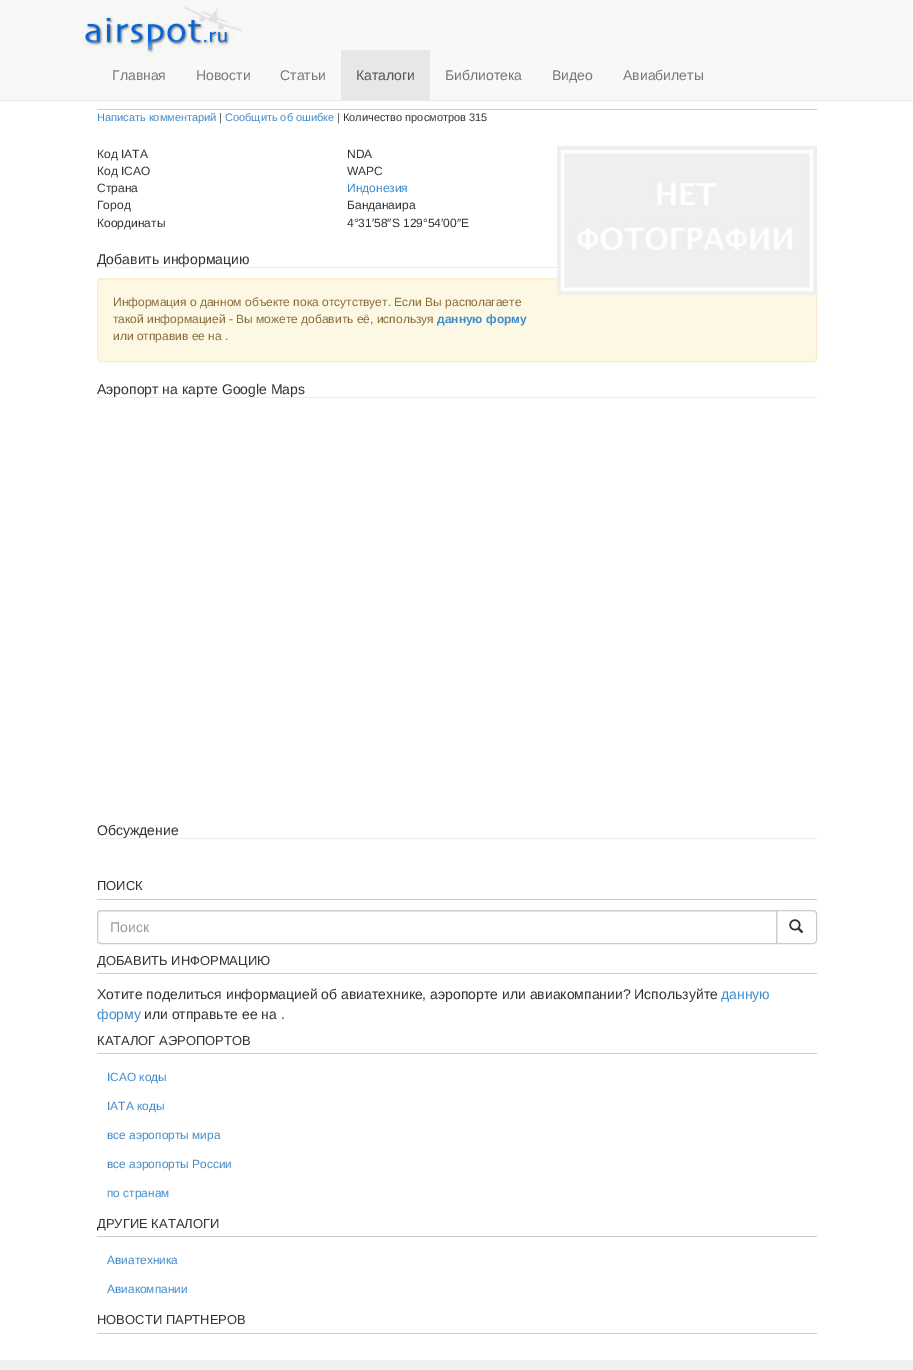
%!PS
<< /PageSize [913 1370] >> setpagedevice
/m/moveto load def
/l/rlineto load def
/c/rcurveto load def
/z/closepath load def
/f/fill load def
/s/stroke load def
/q/gsave load def
/Q_/grestore load def
/C { dup -16 bitshift 255 div exch dup -8 bitshift 255 and 255 div exch 255 and 255 div setrgbcolor } def
/F { [ exch dup neg 0 0 3 -1 roll 0 0 ] selectfont } def
/T { moveto show } def
/R { rectfill } def
/Q { 5 dict begin { /r /h /w /y /x } { exch def } forall
  x r add y moveto x w add y 2 copy h add r arct x w add y h add x 1 index r arct
  x y h add x y r arct x y 2 copy exch w add exch r arct closepath end } def
/I { 5 dict begin { /h /w /y /x /name } { exch def } forall
  gsave x y translate w h scale
  w h 8 [w 0 0 h 0 0] name (r) file false 3 colorimage grestore end } def
0 1370 translate 1 -1 scale
4 setmiterlimit
16#FFFFFF C
0 0 913 1370 R
16#F8F8F8 C
0 0 913 100 R
16#E7E7E7 C
0 100 913 1 R
(1.rgb) 82 6 161 50 I
/LiberationSans-Regular 14 F
16#777777 C
(Главная) 112 80 T
(Новости) 196 80 T
(Статьи) 280 80 T
16#E7E7E7 C
341 50 89 50 R
16#555555 C
(Каталоги) 356 80 T
16#777777 C
(Библиотека) 445 80 T
(Видео) 552 80 T
(Авиабилеты) 623 80 T
16#CCCCCC C
97 109 720 1 R
/LiberationSans-Regular 11 F
16#428BCA C
(Написать комментарий) 97 121 T
16#333333 C
(|) 219 121 T
16#428BCA C
(Сообщить об ошибке) 225 121 T
16#333333 C
(| Количество просмотров 315) 337 121 T
/LiberationSans-Regular 12 F
(Код IATA) 97 158 T
(NDA) 347 158 T
(Код ICAO) 97 175 T
(WAPC) 347 175 T
(Страна) 97 192 T
16#428BCA C
(Индонезия) 347 192 T
16#333333 C
(Город) 97 209 T
(Банданаира) 347 209 T
(Координаты) 97 227 T
(4°31′58″S 129°54′00″E) 347 227 T
16#FCF8E3 C
97.5 278.5 719 83 3.5 Q q f Q_
16#FAEBCC C
s
(2.rgb) 557 146 260 149 I
16#EEEEEE C
97 267 460 1 R
/LiberationSans-Regular 14 F
16#333333 C
(Добавить информацию) 97 264 T
/LiberationSans-Regular 12 F
16#8A6D3B C
(Информация о данном объекте пока отсутствует. Если Вы располагаете) 113 306 T
(такой информацией - Вы можете добавить её, используя) 113 323 T
/LiberationSans-Bold 12 F
16#428BCA C
(данную форму) 437 323 T
/LiberationSans-Regular 12 F
16#8A6D3B C
(или отправив ее на .) 113 340 T
16#EEEEEE C
97 397 720 1 R
/LiberationSans-Regular 14 F
16#333333 C
(Аэропорт на карте Google Maps) 97 394 T
16#EEEEEE C
97 838 720 1 R
16#333333 C
(Обсуждение) 97 835 T
16#CCCCCC C
97 899 720 1 R
/LiberationSans-Regular 13 F
16#333333 C
(ПОИСК) 97 890 T
16#CCCCCC C
776.5 910.5 m 36.5 0 l 2 0 3.5 1.5 3.5 3.5 c 0 26 l 0 2 -1.5 3.5 -3.5 3.5 c -36.5 0 l z s
16#FFFFFF C
101 910 m 676 0 l 0 34 l -676 0 l -2 0 -4 -2 -4 -4 c 0 -26 l 0 -2 2 -4 4 -4 c z f
16#ECECEC C
101 912 m 675 0 l 0 -1 l -675 0 l -2 0 -3 1 -3 3 c 0 1 l 0 -2 1 -3 3 -3 c z f
16#CCCCCC C
101 910.5 m 675.5 0 l 0 33 l -675.5 0 l -2 0 -3.5 -1.5 -3.5 -3.5 c 0 -26 l 0 -2 1.5 -3.5 3.5 -3.5 c z s
/LiberationSans-Regular 14 F
16#999999 C
(Поиск) 110 932 T
(3.rgb) 789 919 15 15 I
16#CCCCCC C
97 973 720 1 R
/LiberationSans-Regular 13 F
16#333333 C
(ДОБАВИТЬ ИНФОРМАЦИЮ) 97 965 T
/LiberationSans-Regular 14 F
(Хотите поделиться информацией об авиатехнике, аэропорте или авиакомпании? Используйте) 97 999 T
16#428BCA C
(данную) 721 999 T
(форму) 97 1019 T
16#333333 C
(или отправьте ее на .) 144 1019 T
16#CCCCCC C
97 1053 720 1 R
/LiberationSans-Regular 13 F
16#333333 C
(КАТАЛОГ АЭРОПОРТОВ) 97 1045 T
/LiberationSans-Regular 11.9 F
16#428BCA C
(ICAO коды) 107 1081 T
(IATA коды) 107 1110 T
(все аэропорты мира) 107 1139 T
(все аэропорты России) 107 1168 T
(по странам) 107 1197 T
16#CCCCCC C
97 1236 720 1 R
/LiberationSans-Regular 13 F
16#333333 C
(ДРУГИЕ КАТАЛОГИ) 97 1228 T
/LiberationSans-Regular 11.9 F
16#428BCA C
(Авиатехника) 107 1264 T
(Авиакомпании) 107 1293 T
16#CCCCCC C
97 1333 720 1 R
/LiberationSans-Regular 13 F
16#333333 C
(НОВОСТИ ПАРТНЕРОВ) 97 1324 T
16#F0F0F0 C
0 1360 913 10 R
showpage
